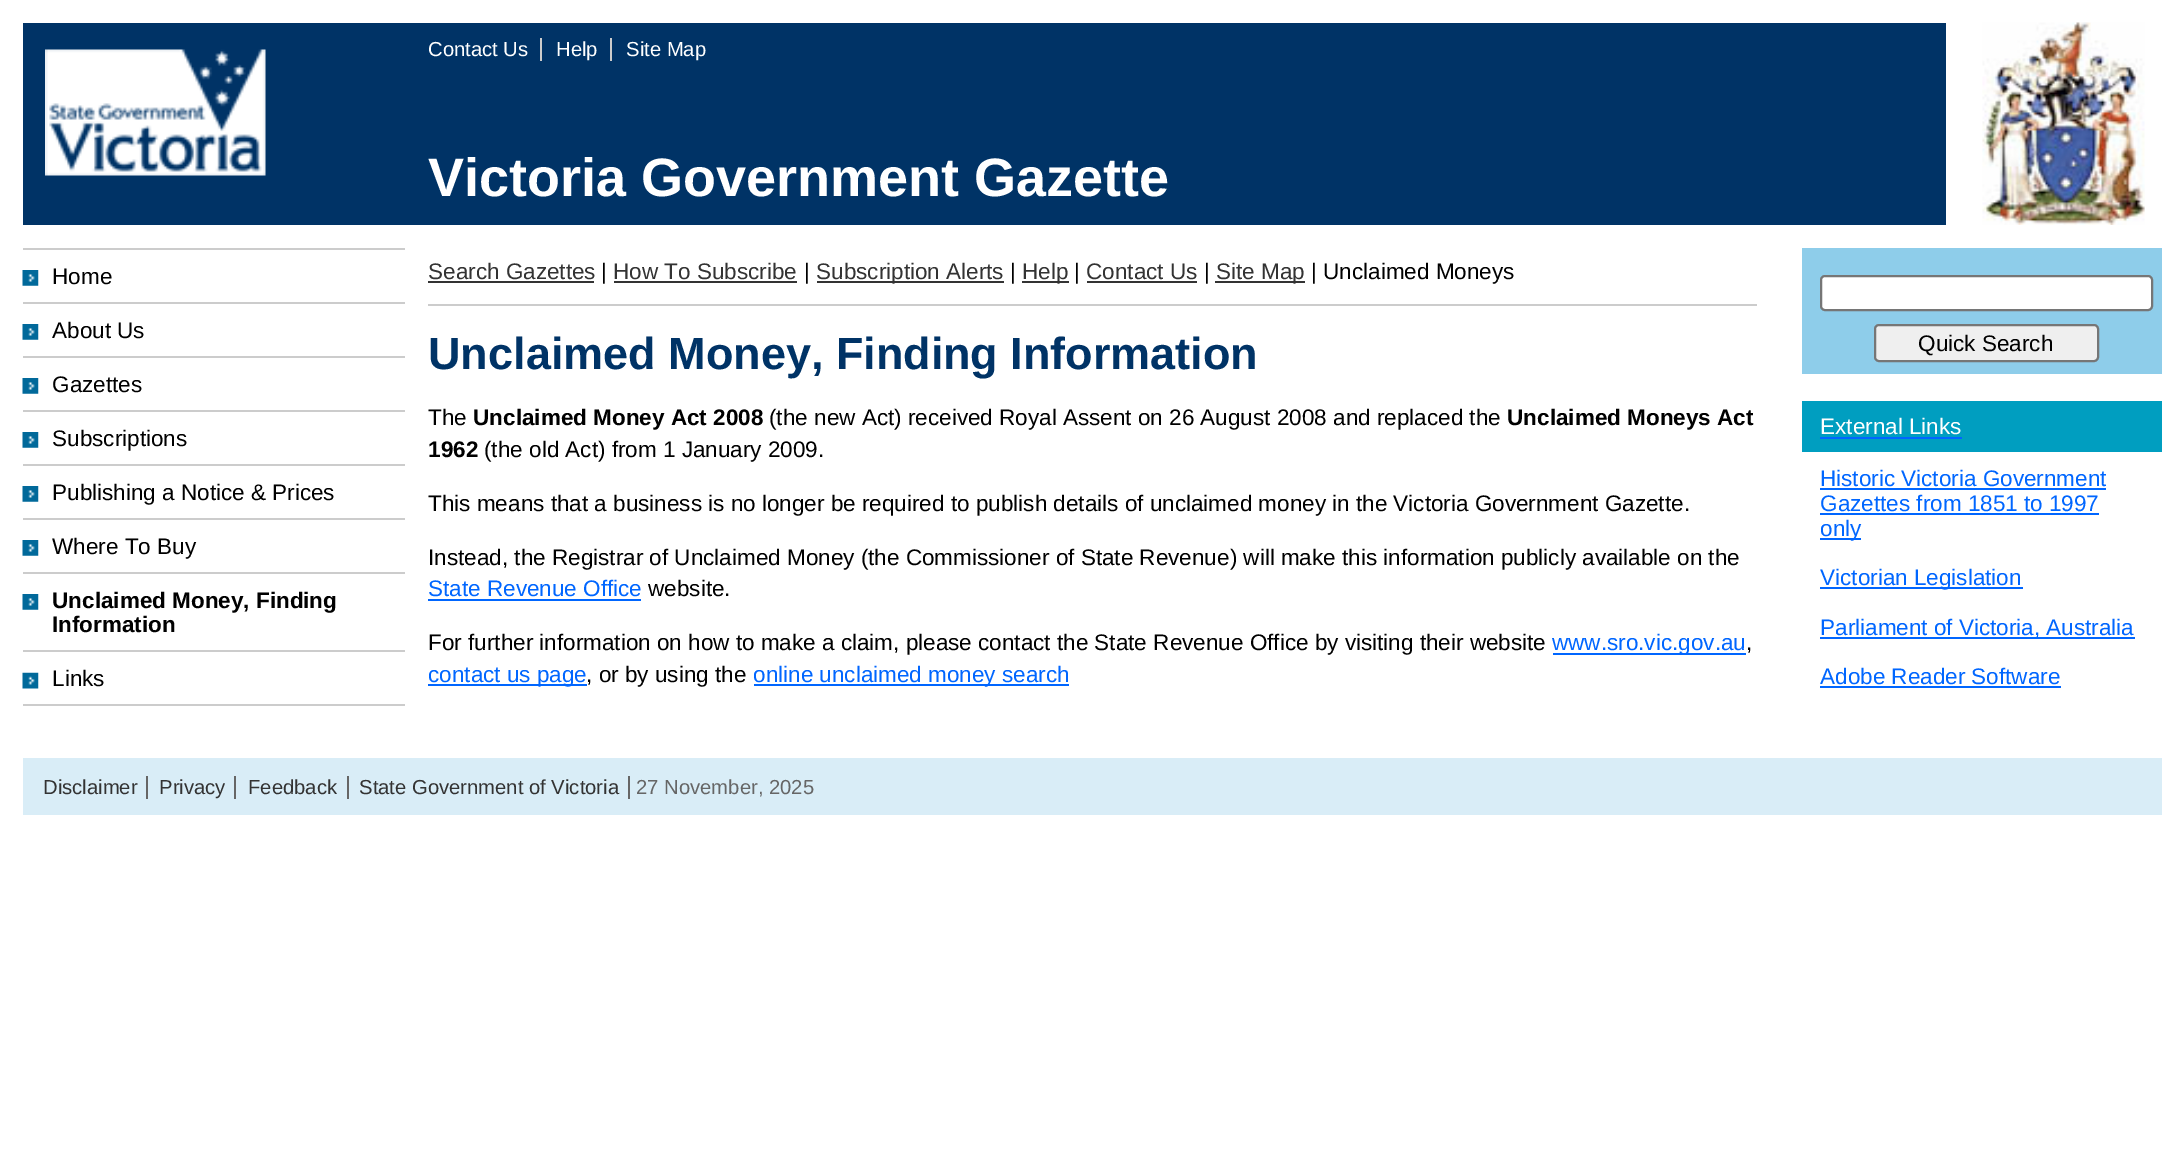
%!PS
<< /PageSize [2184 1164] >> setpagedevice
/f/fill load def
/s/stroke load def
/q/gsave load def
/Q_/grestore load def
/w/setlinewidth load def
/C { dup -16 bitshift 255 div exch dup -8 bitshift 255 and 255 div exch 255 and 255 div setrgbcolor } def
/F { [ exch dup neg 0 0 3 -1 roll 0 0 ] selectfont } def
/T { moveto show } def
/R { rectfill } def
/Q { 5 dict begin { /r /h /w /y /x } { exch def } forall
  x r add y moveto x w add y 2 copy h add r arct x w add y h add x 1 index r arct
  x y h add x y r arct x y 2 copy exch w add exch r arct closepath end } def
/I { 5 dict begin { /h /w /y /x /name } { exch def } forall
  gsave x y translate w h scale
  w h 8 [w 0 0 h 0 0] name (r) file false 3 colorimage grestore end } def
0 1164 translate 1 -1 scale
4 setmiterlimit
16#FFFFFF C
0 0 2184 1164 R
16#003366 C
23 23 1923 202 R
(1.rgb) 45 49 221 127 I
/LiberationSans-Regular 20.25 F
16#FFFFFF C
(Contact Us) 428 56 T
(Help) 556 56 T
16#CCCCCC C
540 38 2 23 R
16#FFFFFF C
(Site Map) 626 56 T
16#CCCCCC C
610 38 2 23 R
(2.rgb) 1982 22 163 203 I
/LiberationSans-Bold 54 F
16#FFFFFF C
(Victoria Government Gazette) 428 196 T
16#CCCCCC C
23 248 382 2 R
(3.rgb) 22 270 17 16 I
23 302 382 2 R
/LiberationSans-Regular 22.5 F
16#000000 C
(Home) 52 284 T
(3.rgb) 22 324 17 16 I
16#CCCCCC C
23 356 382 2 R
16#000000 C
(About Us) 52 338 T
(3.rgb) 22 378 17 16 I
16#CCCCCC C
23 410 382 2 R
16#000000 C
(Gazettes) 52 392 T
(3.rgb) 22 432 17 16 I
16#CCCCCC C
23 464 382 2 R
16#000000 C
(Subscriptions) 52 446 T
(3.rgb) 22 486 17 16 I
16#CCCCCC C
23 518 382 2 R
16#000000 C
(Publishing a Notice & Prices) 52 500 T
(3.rgb) 22 540 17 16 I
16#CCCCCC C
23 572 382 2 R
16#000000 C
(Where To Buy) 52 554 T
(3.rgb) 22 594 17 16 I
16#CCCCCC C
23 650 382 2 R
/LiberationSans-Bold 22.5 F
16#000000 C
(Unclaimed Money, Finding) 52 608 T
(Information) 52 632 T
(4.rgb) 22 672 17 17 I
16#CCCCCC C
23 704 382 2 R
/LiberationSans-Regular 22.5 F
16#000000 C
(Links) 52 686 T
16#CCCCCC C
428 304 1329 2 R
16#333333 C
(Search Gazettes) 428 279 T
428 281 166 2 R
16#000000 C
(|) 601 279 T
16#333333 C
(How To Subscribe) 613 279 T
614 281 183 2 R
16#000000 C
(|) 804 279 T
16#333333 C
817 281 187 2 R
(Subscription Alerts) 816 279 T
16#000000 C
(|) 1010 279 T
16#333333 C
1022 281 47 2 R
(Help) 1022 279 T
16#000000 C
(|) 1074 279 T
16#333333 C
(Contact Us) 1086 279 T
1087 281 110 2 R
16#000000 C
(|) 1204 279 T
16#333333 C
1215 281 90 2 R
(Site Map) 1216 279 T
16#000000 C
(| Unclaimed Moneys) 1311 279 T
/LiberationSans-Bold 45 F
16#003366 C
(Unclaimed Money, Finding Information) 428 369 T
/LiberationSans-Regular 22.5 F
16#000000 C
(The) 428 425 T
/LiberationSans-Bold 22.5 F
(Unclaimed Money Act 2008) 473 425 T
/LiberationSans-Regular 22.5 F
(\(the new Act\) received Royal Assent on 26 August 2008 and replaced the) 769 425 T
/LiberationSans-Bold 22.5 F
(Unclaimed Moneys Act) 1507 425 T
(1962) 428 457 T
/LiberationSans-Regular 22.5 F
(\(the old Act\) from 1 January 2009.) 484 457 T
(This means that a business is no longer be required to publish details of unclaimed money in the Victoria Government Gazette.) 428 511 T
(Instead, the Registrar of Unclaimed Money \(the Commissioner of State Revenue\) will make this information publicly available on the) 428 565 T
16#0066FF C
(State Revenue Office) 428 596 T
428 599 213 2 R
16#000000 C
(website.) 648 596 T
(For further information on how to make a claim, please contact the State Revenue Office by visiting their website) 428 650 T
16#0066FF C
1553 653 193 2 R
(www.sro.vic.gov.au) 1552 650 T
16#000000 C
(,) 1746 650 T
16#0066FF C
428 684 159 2 R
(contact us page) 428 682 T
16#000000 C
(, or by using the) 586 682 T
16#0066FF C
754 684 315 2 R
(online unclaimed money search) 753 682 T
16#8ECDEA C
1802 248 360 126 R
16#FFFFFF C
1821 276 331 34 4 Q q f Q_
16#767676 C
2 w
s
16#EFEFEF C
1875 325 223 36 4 Q q f Q_
16#767676 C
s
16#000000 C
(Quick Search) 1918 351 T
16#009EC0 C
1802 401 360 51 R
16#FFFFFF C
(External Links) 1820 434 T
16#0066FF C
1820 437 142 2 R
(Historic Victoria Government) 1820 486 T
1820 488 286 2 R
(Gazettes from 1851 to 1997) 1820 511 T
1820 513 279 2 R
1820 538 41 2 R
(only) 1820 536 T
1820 587 203 2 R
(Victorian Legislation) 1820 585 T
1820 637 315 2 R
(Parliament of Victoria, Australia) 1820 635 T
(Adobe Reader Software) 1820 684 T
1820 686 241 2 R
16#D9EDF7 C
23 758 2139 57 R
/LiberationSans-Regular 20.25 F
16#333333 C
(Disclaimer) 43 794 T
16#666666 C
146 776 2 23 R
16#333333 C
(Privacy) 159 794 T
16#666666 C
234 776 2 23 R
16#333333 C
(Feedback) 248 794 T
16#666666 C
347 776 2 23 R
16#333333 C
(State Government of Victoria) 359 794 T
16#666666 C
628 776 2 23 R
(27 November, 2025) 636 794 T
showpage
